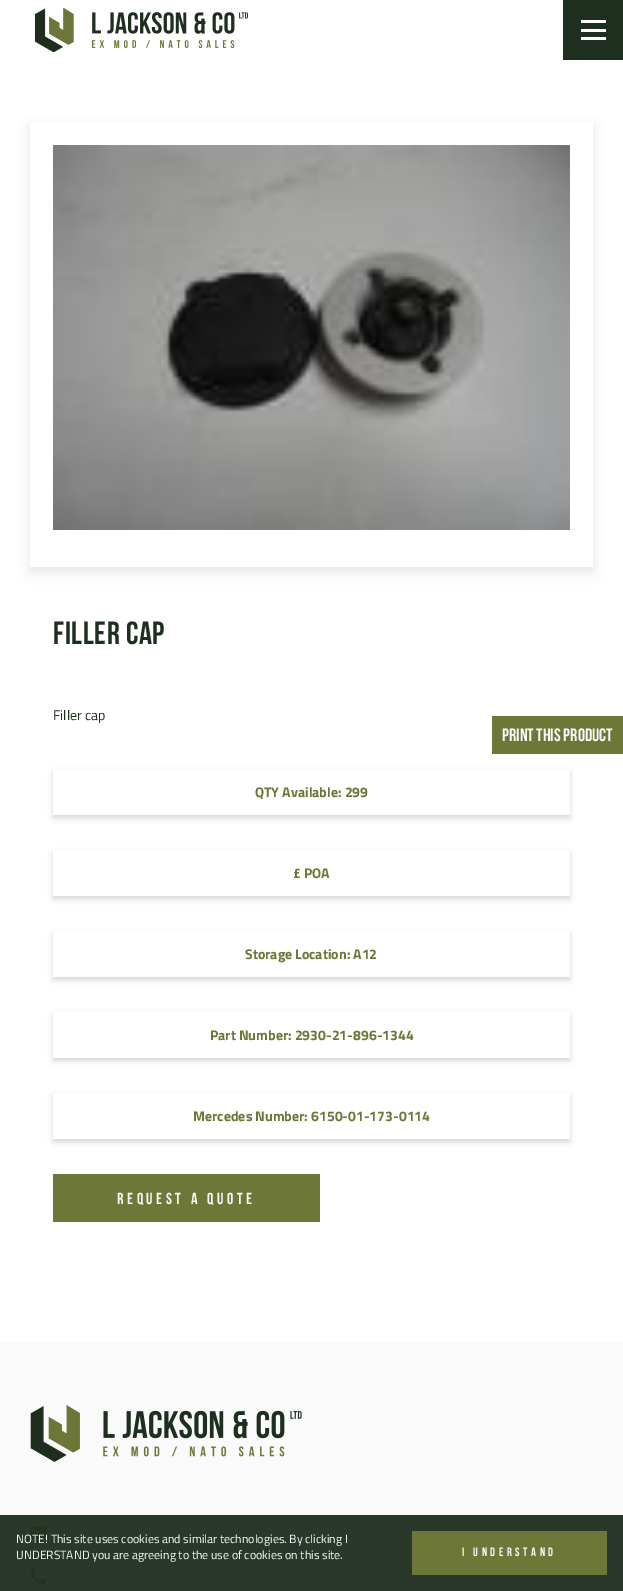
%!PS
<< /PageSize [623 1591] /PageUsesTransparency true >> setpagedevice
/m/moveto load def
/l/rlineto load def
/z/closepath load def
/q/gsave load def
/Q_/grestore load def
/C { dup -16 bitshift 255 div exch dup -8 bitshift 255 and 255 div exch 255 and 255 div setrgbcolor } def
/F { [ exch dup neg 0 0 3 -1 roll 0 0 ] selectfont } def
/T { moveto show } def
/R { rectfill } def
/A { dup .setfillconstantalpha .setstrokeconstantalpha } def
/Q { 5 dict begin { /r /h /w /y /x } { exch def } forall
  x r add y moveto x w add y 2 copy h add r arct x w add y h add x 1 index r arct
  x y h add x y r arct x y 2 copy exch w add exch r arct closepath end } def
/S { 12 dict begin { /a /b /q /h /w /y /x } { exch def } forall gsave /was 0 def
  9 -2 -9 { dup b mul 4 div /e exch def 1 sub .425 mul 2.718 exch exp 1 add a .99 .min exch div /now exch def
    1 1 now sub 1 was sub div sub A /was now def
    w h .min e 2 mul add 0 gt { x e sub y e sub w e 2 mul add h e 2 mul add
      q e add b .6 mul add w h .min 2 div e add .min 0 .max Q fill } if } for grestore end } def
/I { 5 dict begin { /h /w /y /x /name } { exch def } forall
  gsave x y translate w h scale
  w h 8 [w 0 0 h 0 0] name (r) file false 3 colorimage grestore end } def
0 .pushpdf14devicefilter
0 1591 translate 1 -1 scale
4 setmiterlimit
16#FFFFFF C
0 0 623 1591 R
(1.rgb) 34 8 214 44 I
16#1E2E1F C
563 0 60 60 R
16#FFFFFF C
581 20 25 3 R
581 29 25 3 R
581 37 25 3 R
q
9 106 m 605 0 l 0 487 l -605 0 l z 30 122 m 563 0 l 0 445 l -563 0 l z eoclip newpath
16#000000 C
30 127 563 445 0 6.5 .1 S
Q_
(2.rgb) 53 145 517 385 I
/BebasNeue-Bold 32 F
16#1E2E1F C
53 644 m .6 0 (Filler cap) ashow
/TitilliumWeb-Regular 14 F
(Filler cap) 53 720 T
q
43 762 m 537 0 l 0 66 l -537 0 l z 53 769 m 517 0 l 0 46 l -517 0 l z eoclip newpath
16#000000 C
53 772 517 46 0 3 .16 S
Q_
/TitilliumWeb-Bold 14 F
16#6D7738 C
(QTY Available: 299) 255 797 T
q
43 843 m 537 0 l 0 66 l -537 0 l z 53 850 m 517 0 l 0 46 l -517 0 l z eoclip newpath
16#000000 C
53 853 517 46 0 3 .16 S
Q_
(£ POA) 293 878 T
q
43 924 m 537 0 l 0 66 l -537 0 l z 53 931 m 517 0 l 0 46 l -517 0 l z eoclip newpath
16#000000 C
53 934 517 46 0 3 .16 S
Q_
(Storage Location: A12) 245 959 T
q
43 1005 m 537 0 l 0 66 l -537 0 l z 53 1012 m 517 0 l 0 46 l -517 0 l z eoclip newpath
16#000000 C
53 1015 517 46 0 3 .16 S
Q_
(Part Number: 2930-21-896-1344) 210 1040 T
q
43 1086 m 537 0 l 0 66 l -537 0 l z 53 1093 m 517 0 l 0 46 l -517 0 l z eoclip newpath
16#000000 C
53 1096 517 46 0 3 .16 S
Q_
(Mercedes Number: 6150-01-173-0114) 193 1121 T
53 1174 267 48 R
/BebasNeue-Bold 16 F
16#FAFAFA C
117 1204 m 3.6 0 (REQUEST A QUOTE) ashow
16#6D7738 C
492 716 131 38 R
/BebasNeue-Bold 18 F
16#FAFAFA C
(Print This Product) 502 741 T
0 1341 623 174 R
16#29382A C
0 1515 623 76 R
(3.rgb) 30 1405 272 57 I
(4.rgb) 30 1527 16 11 I
(5.rgb) 30 1568 16 16 I
/TitilliumWeb-Regular 12 F
16#FAFAFA C
(NOTE! This site uses cookies and similar technologies. By clicking I) 16 1543 T
(UNDERSTAND you are agreeing to the use of cookies on this site.) 16 1559 T
16#6D7738 C
412 1531 195 44 R
/BebasNeue-Bold 12 F
16#FAFAFA C
462 1556 m 3.6 0 (I UNDERSTAND) ashow
.poppdf14devicefilter showpage
